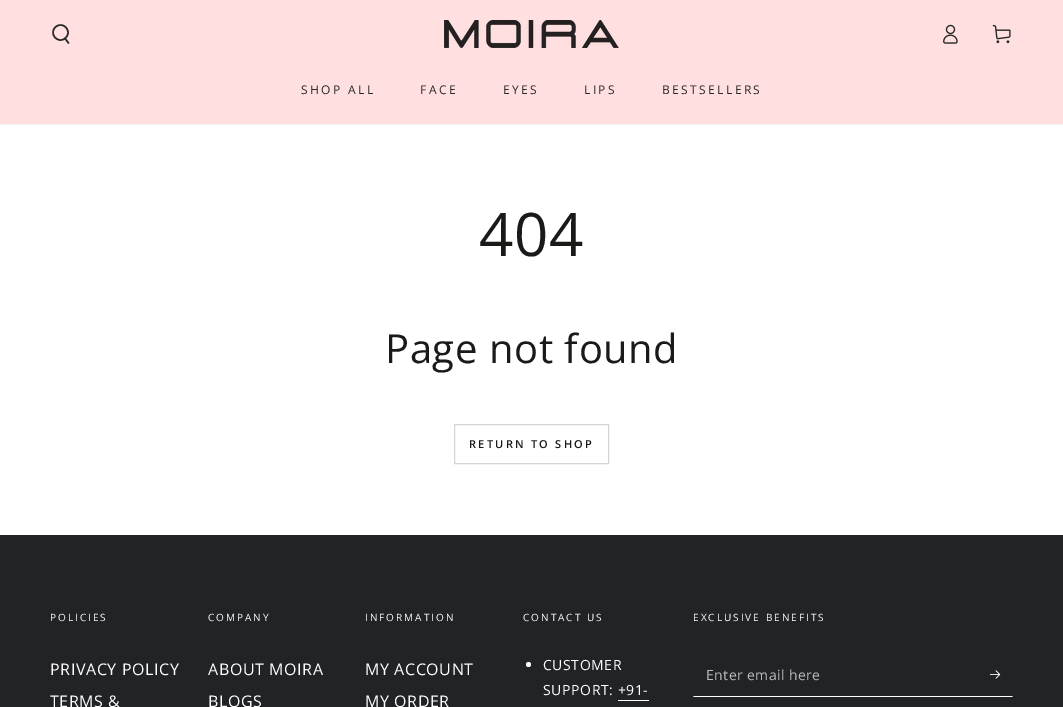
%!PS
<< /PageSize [1063 707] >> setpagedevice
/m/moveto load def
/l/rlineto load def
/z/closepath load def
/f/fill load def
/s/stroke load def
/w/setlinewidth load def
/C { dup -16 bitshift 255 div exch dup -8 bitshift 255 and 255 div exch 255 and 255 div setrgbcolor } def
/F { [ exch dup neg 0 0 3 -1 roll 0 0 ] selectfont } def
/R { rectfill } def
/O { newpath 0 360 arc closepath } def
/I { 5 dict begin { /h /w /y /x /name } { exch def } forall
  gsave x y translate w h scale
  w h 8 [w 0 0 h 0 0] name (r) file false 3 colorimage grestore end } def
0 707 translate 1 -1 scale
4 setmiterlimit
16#FFFFFF C
0 0 1063 707 R
16#F2F2F4 C
0 124 1063 1 R
16#FFDFDF C
0 0 1063 124 R
16#282828 C
1.5 w
60.5 32.5 7.5 O s
1 setlinecap
65 38.5 m 3.5 4.5 l s
(1.rgb) 444 20 175 28 I
(2.rgb) 943 24 15 20 I
(3.rgb) 992 24 19 20 I
/OpenSans-Regular 12 F
301 94 m 2.4 0 (SHOP ALL) ashow
420 94 m 2.4 0 (FACE) ashow
503 94 m 2.4 0 (EYES) ashow
584 94 m 2.4 0 (LIPS) ashow
662 94 m 2.4 0 (BESTSELLERS) ashow
/OpenSans-Regular 60 F
16#1A1B18 C
479 256 m .6 0 (404) ashow
/OpenSans-Regular 40 F
385 363 m .6 0 (Page not found) ashow
16#D2D5D9 C
1 w
0 setlinecap
454.5 424.5 154 39 rectstroke
/OpenSans-SemiBold 11 F
16#1A1B18 C
469 448 m 2.25 0 (RETURN TO SHOP) ashow
16#212326 C
0 535 1063 172 R
/OpenSans-Regular 10 F
16#FFFFFF C
50 621 m 2 0 (POLICIES) ashow
/OpenSans-Regular 16 F
50 675 m .6 0 (PRIVACY POLICY) ashow
50 707 m .6 0 (TERMS &) ashow
/OpenSans-Regular 10 F
208 621 m 2 0 (COMPANY) ashow
/OpenSans-Regular 16 F
208 675 m .6 0 (ABOUT MOIRA) ashow
208 707 m .6 0 (BLOGS) ashow
/OpenSans-Regular 10 F
365 621 m 2 0 (INFORMATION) ashow
/OpenSans-Regular 16 F
365 675 m .6 0 (MY ACCOUNT) ashow
365 707 m .6 0 (MY ORDER) ashow
/OpenSans-Regular 10 F
523 621 m 2 0 (CONTACT US) ashow
528.5 664.5 2.5 O f
/OpenSans-Regular 14 F
543 670 m .6 0 (CUSTOMER) ashow
543 695 m .6 0 (SUPPORT: +91-) ashow
618 700 31 1 R
/OpenSans-Regular 10 F
693 621 m 2 0 (EXCLUSIVE BENEFITS) ashow
1013 697 m -320 0 l 1 -1 l 318 0 l z f
/OpenSans-Regular 14 F
16#BCBDBE C
706 680 m .4 0 (Enter email here) ashow
(4.rgb) 990 670 11 9 I
showpage
